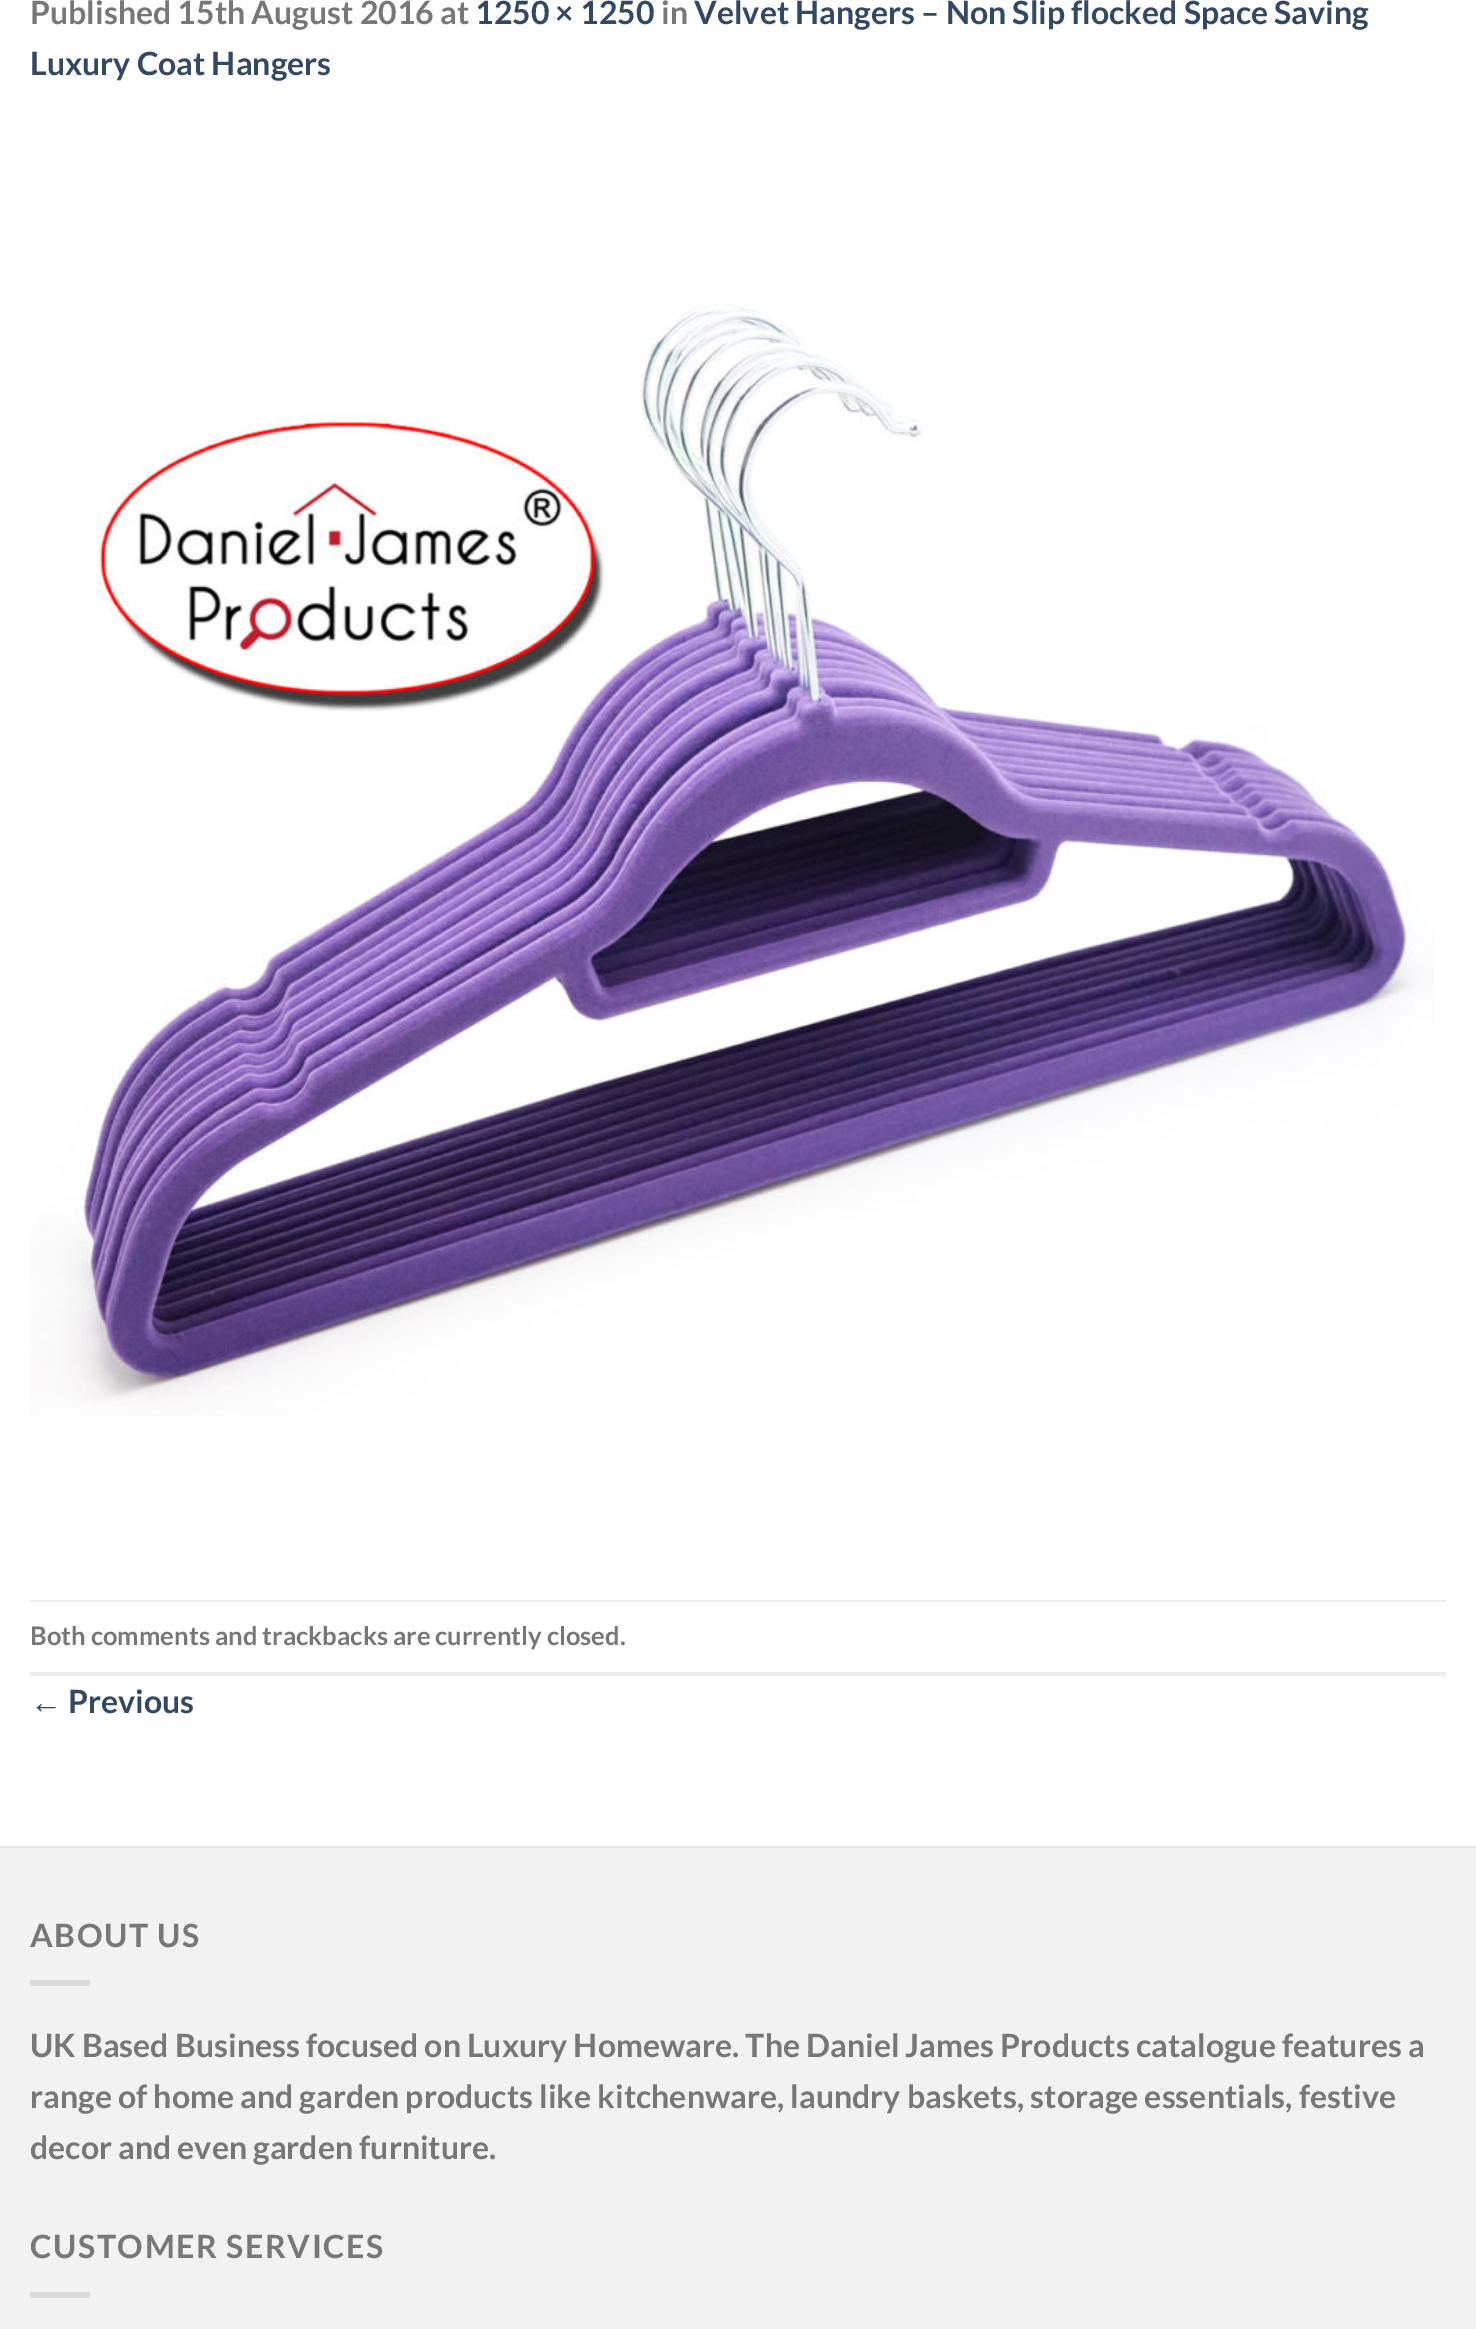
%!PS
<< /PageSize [1476 2329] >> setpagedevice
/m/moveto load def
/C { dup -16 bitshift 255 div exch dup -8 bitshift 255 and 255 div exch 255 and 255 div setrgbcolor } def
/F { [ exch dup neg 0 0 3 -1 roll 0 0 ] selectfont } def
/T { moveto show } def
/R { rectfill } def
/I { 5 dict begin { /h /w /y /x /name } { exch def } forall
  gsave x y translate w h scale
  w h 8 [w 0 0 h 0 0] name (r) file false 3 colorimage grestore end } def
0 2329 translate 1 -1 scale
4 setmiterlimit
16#FFFFFF C
0 0 1476 2329 R
/Lato-Bold 32 F
16#777777 C
(Published 15th August 2016 at) 30 24 T
16#334862 C
(1250 × 1250) 475 24 T
16#777777 C
(in) 661 24 T
16#334862 C
(Velvet Hangers – Non Slip flocked Space Saving) 694 24 T
(Luxury Coat Hangers) 30 75 T
(1.rgb) 30 303 1405 1114 I
16#ECECEC C
30 1600 1416 2 R
30 1672 1416 4 R
/Lato-Bold 25.6 F
16#777777 C
(Both comments and trackbacks are currently closed.) 30 1645 T
/LiberationSans-Regular 32 F
16#334862 C
(←) 30 1713 T
/Lato-Bold 32 F
(Previous) 68 1713 T
16#F2F2F2 C
0 1848 1476 481 R
16#E6E6E6 C
0 1846 1476 2 R
16#777777 C
30 1947 m 1.6 0 (ABOUT US) ashow
16#DADADA C
30 1980 60 6 R
16#777777 C
(UK Based Business focused on Luxury Homeware. The Daniel James Products catalogue features a) 30 2057 T
(range of home and garden products like kitchenware, laundry baskets, storage essentials, festive) 30 2108 T
(decor and even garden furniture.) 30 2159 T
30 2258 m 1.6 0 (CUSTOMER SERVICES) ashow
16#DADADA C
30 2292 60 6 R
showpage
